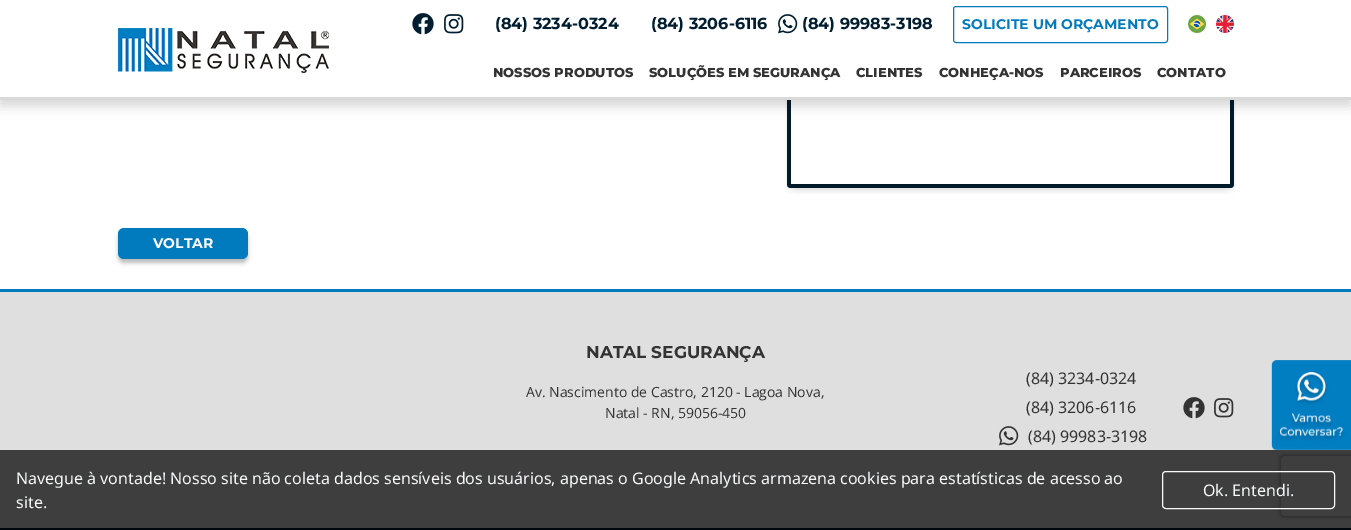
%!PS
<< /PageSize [1351 530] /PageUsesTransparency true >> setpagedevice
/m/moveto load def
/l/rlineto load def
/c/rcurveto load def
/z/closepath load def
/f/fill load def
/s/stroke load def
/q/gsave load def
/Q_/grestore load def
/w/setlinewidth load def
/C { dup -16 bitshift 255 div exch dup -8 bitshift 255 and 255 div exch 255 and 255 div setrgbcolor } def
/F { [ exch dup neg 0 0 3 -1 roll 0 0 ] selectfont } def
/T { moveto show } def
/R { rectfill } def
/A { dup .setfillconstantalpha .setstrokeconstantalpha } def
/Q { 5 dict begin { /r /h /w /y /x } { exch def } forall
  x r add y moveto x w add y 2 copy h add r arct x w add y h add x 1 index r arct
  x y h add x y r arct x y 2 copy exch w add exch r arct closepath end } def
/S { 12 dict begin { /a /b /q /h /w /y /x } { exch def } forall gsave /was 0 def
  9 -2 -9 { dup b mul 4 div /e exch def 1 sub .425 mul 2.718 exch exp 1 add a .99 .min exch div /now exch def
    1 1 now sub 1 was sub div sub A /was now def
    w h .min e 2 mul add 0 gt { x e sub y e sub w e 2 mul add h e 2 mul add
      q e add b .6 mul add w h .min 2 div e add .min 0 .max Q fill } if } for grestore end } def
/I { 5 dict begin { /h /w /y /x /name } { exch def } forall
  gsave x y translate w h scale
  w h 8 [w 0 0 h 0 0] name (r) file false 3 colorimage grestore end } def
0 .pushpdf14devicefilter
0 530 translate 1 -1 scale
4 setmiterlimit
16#FFFFFF C
0 0 1351 530 R
16#001E2F C
4 w
789 -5 443 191 1 Q s
(7.rgb) 785 100 451 94 I
16#000000 C
0 6 1351 100 0 6 .16 S
16#FFFFFF C
0 0 1351 97 R
16#D9D9D9 C
0 97 1351 3 R
(1.rgb) 412 13 22 22 I
(2.rgb) 444 14 20 20 I
/Montserrat-Bold 16 F
16#001E2F C
(\(84\) 3234-0324) 495 29 T
(\(84\) 3206-6116) 651 29 T
(3.rgb) 778 14 20 20 I
(\(84\) 99983-3198) 802 29 T
16#027BBE C
1 w
953.5 6.5 214 36 2.5 Q s
/Montserrat-Bold 14 F
(SOLICITE UM ORÇAMENTO) 962 29 T
(4.rgb) 1188 15 18 18 I
(5.rgb) 1216 15 18 18 I
(6.rgb) 118 28 211 45 I
/Montserrat-ExtraBold 13 F
16#333333 C
(NOSSOS PRODUTOS) 493 77 T
(SOLUÇÕES EM SEGURANÇA) 649 77 T
(CLIENTES) 856 77 T
(CONHEÇA-NOS) 939 77 T
(PARCEIROS) 1060 77 T
(CONTATO) 1157 77 T
16#000000 C
118 232 130 31 6 2 .25 S
16#027BBE C
118 228 130 31 6 Q f
/Montserrat-Bold 14 F
16#FFFFFF C
(VOLTAR) 153 248 T
16#DFDFDF C
0 292 1351 236 R
16#027BBE C
0 289 1351 3 R
/Montserrat-Bold 17 F
16#333333 C
(NATAL SEGURANÇA) 586 358 T
/OpenSans-Regular 14 F
(Av. Nascimento de Castro, 2120 - Lagoa Nova,) 526 397 T
(Natal - RN, 59056-450) 605 418 T
/NotoSans-Regular 16 F
(\(84\) 3234-0324) 1026 384 T
(\(84\) 3206-6116) 1026 413 T
(8.rgb) 999 426 20 20 I
(\(84\) 99983-3198) 1028 442 T
(9.rgb) 1183 397 22 22 I
(10.rgb) 1214 398 20 20 I
16#001E2F C
0 528 1351 2 R
q
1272 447 m 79 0 l 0 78 l -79 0 l z 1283 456 m 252 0 l 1 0 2 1 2 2 c 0 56 l 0 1 -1 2 -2 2 c -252 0 l -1 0 -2 -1 -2 -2 c 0 -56 l 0 -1 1 -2 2 -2 c z eoclip newpath
16#808080 C
1281 456 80 60 2 2.5 1 S
Q_
(11.rgb) 1271 360 80 90 I
0.72 A
16#000000 C
0 450 1351 80 R
1 A
16#F8F9FA C
(Navegue à vontade! Nosso site não coleta dados sensíveis dos usuários, apenas o Google Analytics armazena cookies para estatísticas de acesso ao) 16 484 T
(site.) 16 508 T
1162.5 471.5 172 37 3.5 Q s
(Ok. Entendi.) 1203 496 T
.poppdf14devicefilter showpage
